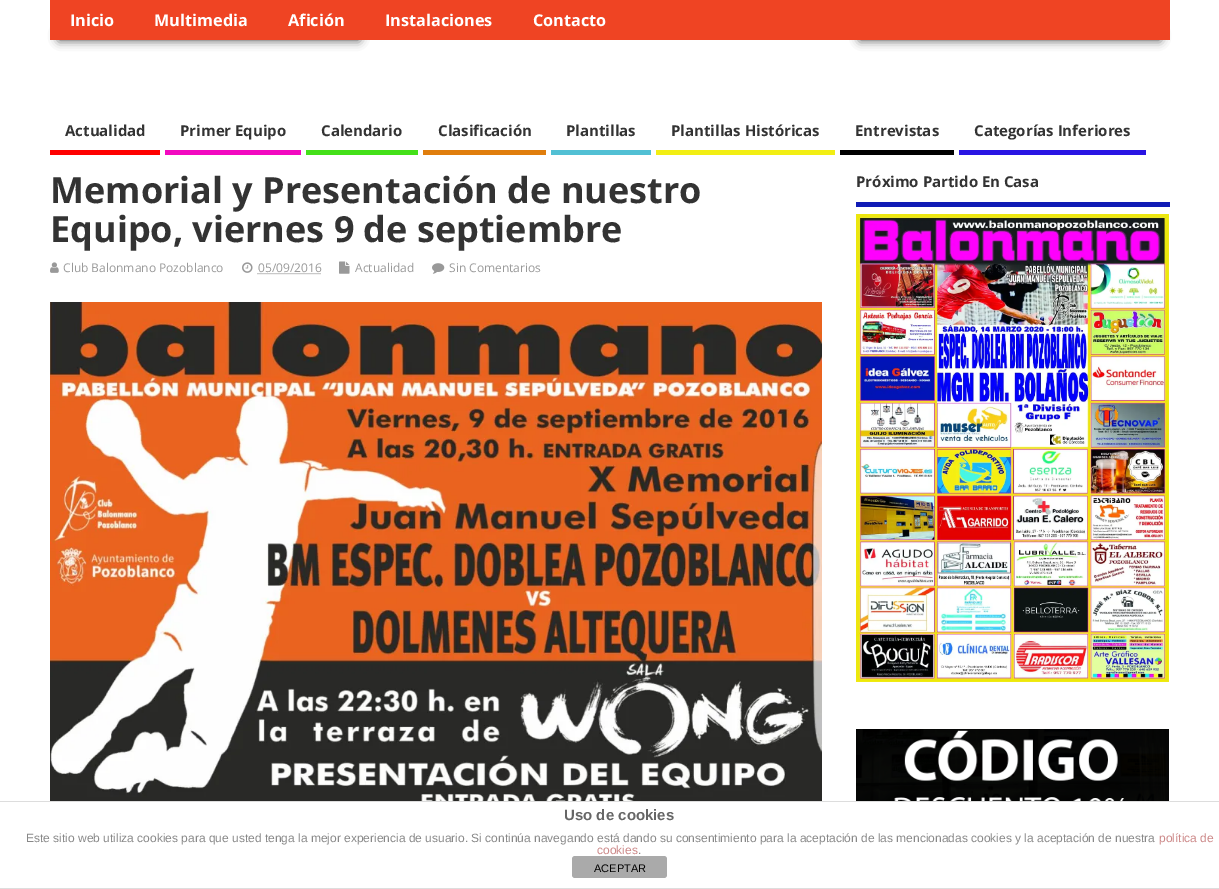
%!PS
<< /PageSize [1219 889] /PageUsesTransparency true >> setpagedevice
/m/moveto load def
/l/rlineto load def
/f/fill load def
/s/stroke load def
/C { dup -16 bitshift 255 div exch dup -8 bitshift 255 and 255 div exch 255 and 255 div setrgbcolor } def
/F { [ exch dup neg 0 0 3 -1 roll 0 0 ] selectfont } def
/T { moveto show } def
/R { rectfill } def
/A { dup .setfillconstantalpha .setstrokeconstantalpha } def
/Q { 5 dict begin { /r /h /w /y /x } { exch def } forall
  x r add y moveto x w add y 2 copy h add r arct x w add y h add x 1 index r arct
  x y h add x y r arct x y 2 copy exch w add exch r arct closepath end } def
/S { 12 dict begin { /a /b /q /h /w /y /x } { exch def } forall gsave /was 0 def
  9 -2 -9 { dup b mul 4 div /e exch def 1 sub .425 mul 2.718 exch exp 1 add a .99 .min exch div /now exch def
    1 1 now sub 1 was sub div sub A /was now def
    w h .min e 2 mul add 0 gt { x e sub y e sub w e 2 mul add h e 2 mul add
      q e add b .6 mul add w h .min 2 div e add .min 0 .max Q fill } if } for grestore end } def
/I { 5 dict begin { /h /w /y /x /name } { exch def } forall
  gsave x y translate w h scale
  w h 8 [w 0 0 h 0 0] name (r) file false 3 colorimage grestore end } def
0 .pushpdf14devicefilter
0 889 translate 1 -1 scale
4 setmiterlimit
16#FFFFFF C
0 0 1219 889 R
16#000000 C
59 32 300 8 0 5 .75 S
860 32 300 8 0 5 .75 S
16#EF4423 C
50 0 1120 40 R
/OpenSans-Bold 16.25 F
16#FFFFFF C
(Inicio) 70 26 T
(Multimedia) 154 26 T
(Afición) 288 26 T
(Instalaciones) 385 26 T
(Contacto) 533 26 T
16#FF0000 C
50 150 110 5 R
/OpenSans-Bold 15 F
16#333333 C
(Actualidad) 65 136 T
16#F209C0 C
165 150 136 5 R
16#333333 C
(Primer Equipo) 180 136 T
16#44E019 C
306 150 112 5 R
16#333333 C
(Calendario) 321 136 T
16#E07E0D C
423 150 123 5 R
16#333333 C
(Clasificación) 438 136 T
16#52C0D4 C
551 150 100 5 R
16#333333 C
(Plantillas) 566 136 T
16#F2EE13 C
656 150 179 5 R
16#333333 C
(Plantillas Históricas) 671 136 T
16#000000 C
840 150 114 5 R
16#333333 C
(Entrevistas) 855 136 T
16#2914E3 C
959 150 187 5 R
16#333333 C
(Categorías Inferiores) 974 136 T
/OpenSans-Bold 36 F
(Memorial y Presentación de nuestro) 50 203 T
(Equipo, viernes 9 de septiembre) 50 242 T
(1.rgb) 50 262 9 11 I
/OpenSans-Regular 12 F
16#999999 C
(Club Balonmano Pozoblanco) 63 272 T
(2.rgb) 242 262 11 11 I
(05/09/2016) 258 272 T
[1 1] 0 setdash
257.5 273.5 m 63.5 0 l s
(3.rgb) 339 261 11 13 I
(Actualidad) 355 272 T
(4.rgb) 432 263 13 11 I
(Sin Comentarios) 449 272 T
(5.rgb) 50 302 772 499 I
16#101BB5 C
856 202 314 5 R
/OpenSans-Bold 15 F
16#333333 C
(Próximo Partido En Casa) 856 187 T
(6.rgb) 856 214 313 468 I
(7.rgb) 856 729 313 72 I
16#DDDDDD C
0 801 1219 1 R
0 888 1219 1 R
/LiberationSans-Bold 15 F
16#666666 C
(Uso de cookies) 564 820 T
/LiberationSans-Regular 12 F
16#888888 C
(Este sitio web utiliza cookies para que usted tenga la mejor experiencia de usuario. Si continúa navegando está dando su consentimiento para la aceptación de las mencionadas cookies y la aceptación de nuestra) 26 842 T
16#CC8888 C
(política de) 1159 842 T
(cookies) 597 854 T
16#888888 C
(.) 638 854 T
16#AAAAAA C
572 856 95 22 3 Q f
/LiberationSans-Regular 11 F
16#000000 C
(ACEPTAR) 594 872 T
.poppdf14devicefilter showpage
